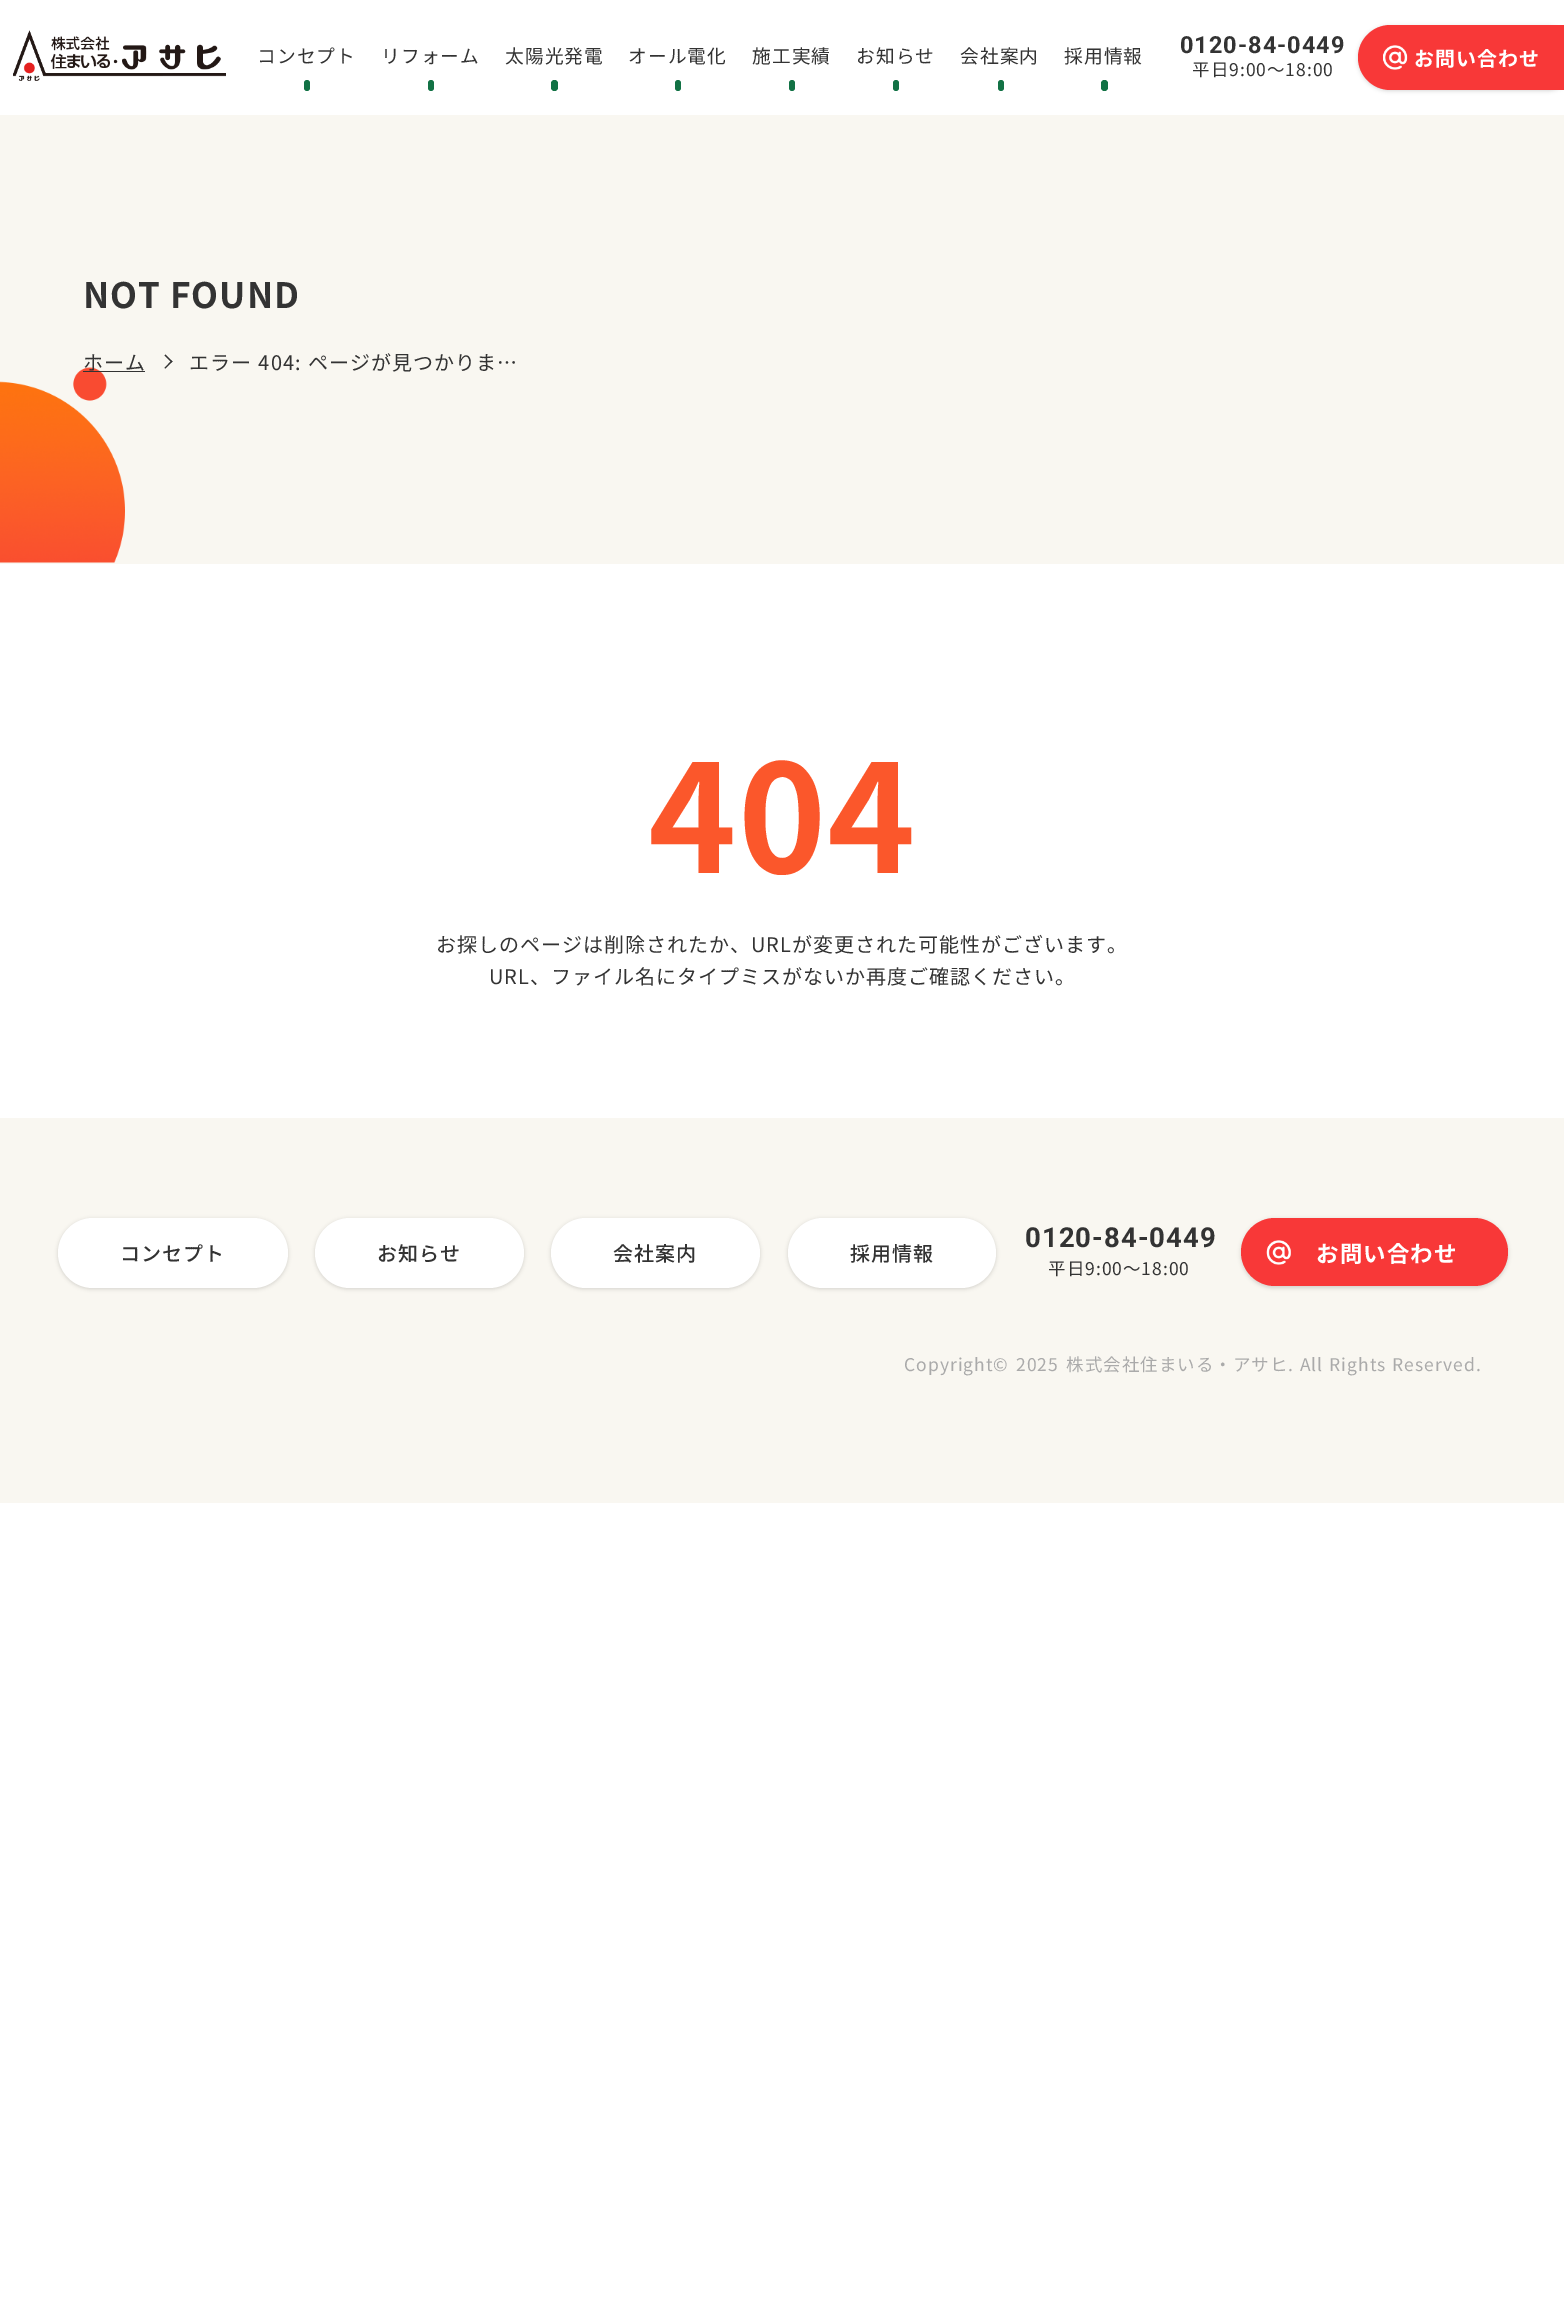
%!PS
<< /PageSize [1564 2318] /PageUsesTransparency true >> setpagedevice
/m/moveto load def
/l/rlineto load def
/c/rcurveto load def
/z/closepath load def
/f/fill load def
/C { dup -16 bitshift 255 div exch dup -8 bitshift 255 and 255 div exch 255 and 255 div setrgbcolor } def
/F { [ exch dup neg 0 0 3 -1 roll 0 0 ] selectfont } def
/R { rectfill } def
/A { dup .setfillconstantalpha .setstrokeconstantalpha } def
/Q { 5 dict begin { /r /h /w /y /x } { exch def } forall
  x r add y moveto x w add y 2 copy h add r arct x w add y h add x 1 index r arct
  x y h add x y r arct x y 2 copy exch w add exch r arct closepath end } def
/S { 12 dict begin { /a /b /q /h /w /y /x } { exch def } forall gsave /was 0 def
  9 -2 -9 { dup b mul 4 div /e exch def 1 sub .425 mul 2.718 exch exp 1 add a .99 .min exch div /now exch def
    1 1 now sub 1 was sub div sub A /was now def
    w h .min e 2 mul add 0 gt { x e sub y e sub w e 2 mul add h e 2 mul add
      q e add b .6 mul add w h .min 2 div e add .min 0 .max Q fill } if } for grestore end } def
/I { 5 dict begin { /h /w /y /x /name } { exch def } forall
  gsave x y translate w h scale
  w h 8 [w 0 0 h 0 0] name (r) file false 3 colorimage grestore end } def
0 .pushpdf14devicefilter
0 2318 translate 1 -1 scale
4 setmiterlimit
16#FFFFFF C
0 0 1564 2318 R
(1.rgb) 13 30 213 51 I
/NotoSansJP-Regular 18.75 F
16#333333 C
257 63 m 1 0 (コンセプト) ashow
16#127245 C
304 80 6 11 3 Q f
16#333333 C
381 63 m 1 0 (リフォーム) ashow
16#127245 C
428 80 6 11 3 Q f
16#333333 C
505 63 m 1 0 (太陽光発電) ashow
16#127245 C
551 80 7 11 3.5 Q f
16#333333 C
628 63 m 1 0 (オール電化) ashow
16#127245 C
675 80 6 11 3 Q f
16#333333 C
752 63 m 1 0 (施工実績) ashow
16#127245 C
789 80 6 11 3 Q f
16#333333 C
856 63 m 1 0 (お知らせ) ashow
16#127245 C
893 80 6 11 3 Q f
16#333333 C
960 63 m 1 0 (会社案内) ashow
16#127245 C
998 80 6 11 3 Q f
16#333333 C
1064 63 m 1 0 (採用情報) ashow
16#127245 C
1101 80 7 11 3.5 Q f
/Roboto-Bold 23.5 F
16#333333 C
1180 53 m 1 0 (0120-84-0449) ashow
/NotoSansJP-Regular 17.5 F
1192 76 m 1 0 (平日9:00～18:00) ashow
16#000000 C
1358 26 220 65 32.5 2 .15 S
16#F83838 C
1390.5 25 m 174.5 0 l 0 65 l -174.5 0 l -18 0 -32.5 -14.5 -32.5 -32.5 c 0 -18 14.5 -32.5 32.5 -32.5 c z f
(2.rgb) 1383 45 25 25 I
/NotoSansJP-Bold 20 F
16#FFFFFF C
1414 66 m 1 0 (お問い合わせ) ashow
16#F9F7F1 C
0 115 1564 449 R
(3.rgb) 0 367 125 196 I
/NotoSansJP-Bold 35 F
16#333333 C
83 308 m 1 0 (NOT FOUND) ashow
/NotoSansJP-Regular 20 F
83 370 m 1 0 (ホーム) ashow
83 371 62 1 R
165.5 354.5 m 7 7 l -1 1 l -7 -7 l z f
171.5 360.5 m 1 1 l -7 7 l -1 -.5 l z f
189 370 m 1 0 32 1 0 (エラー 404: ページが見つかりま…) awidthshow
/NotoSansJP-Bold 150 F
16#FB572B C
648 873 m 1 0 (404) ashow
/NotoSansJP-Regular 20 F
16#333333 C
436 952 m 1 0 (お探しのページは削除されたか、URLが変更された可能性がございます。) ashow
489 984 m 1 0 (URL、ファイル名にタイプミスがないか再度ご確認ください。) ashow
16#F9F7F1 C
0 1118 1564 385 R
16#000000 C
58 1219 230 70 35 2 .15 S
16#FFFFFF C
58 1218 230 70 35 Q f
/NotoSansJP-Medium 20 F
16#333333 C
120 1261 m 1 0 (コンセプト) ashow
16#000000 C
315 1219 209 70 35 2 .15 S
16#FFFFFF C
315 1218 209 70 35 Q f
16#333333 C
377 1261 m 1 0 (お知らせ) ashow
16#000000 C
551 1219 209 70 35 2 .15 S
16#FFFFFF C
551 1218 209 70 35 Q f
16#333333 C
613 1261 m 1 0 (会社案内) ashow
16#000000 C
788 1219 208 70 35 2 .15 S
16#FFFFFF C
788 1218 208 70 35 Q f
16#333333 C
850 1261 m 1 0 (採用情報) ashow
/Roboto-Bold 27.5 F
1025 1247 m 1 0 (0120-84-0449) ashow
/NotoSansJP-Regular 17.5 F
1048 1275 m 1 0 (平日9:00～18:00) ashow
16#000000 C
1241 1219 267 69 34.5 2 .15 S
16#F83838 C
1241 1218 267 68 34 Q f
(4.rgb) 1266 1240 25 25 I
/NotoSansJP-Bold 22.5 F
16#FFFFFF C
1316 1262 m 1 0 (お問い合わせ) ashow
/NotoSansJP-Regular 17.5 F
16#AAAAAA C
904 1371 m 1 0 (Copyright©) ashow
1016 1371 m 1 0 (2025) ashow
1066 1371 m 1 0 32 1 0 (株式会社住まいる・アサヒ. All Rights Reserved.) awidthshow
.poppdf14devicefilter showpage
